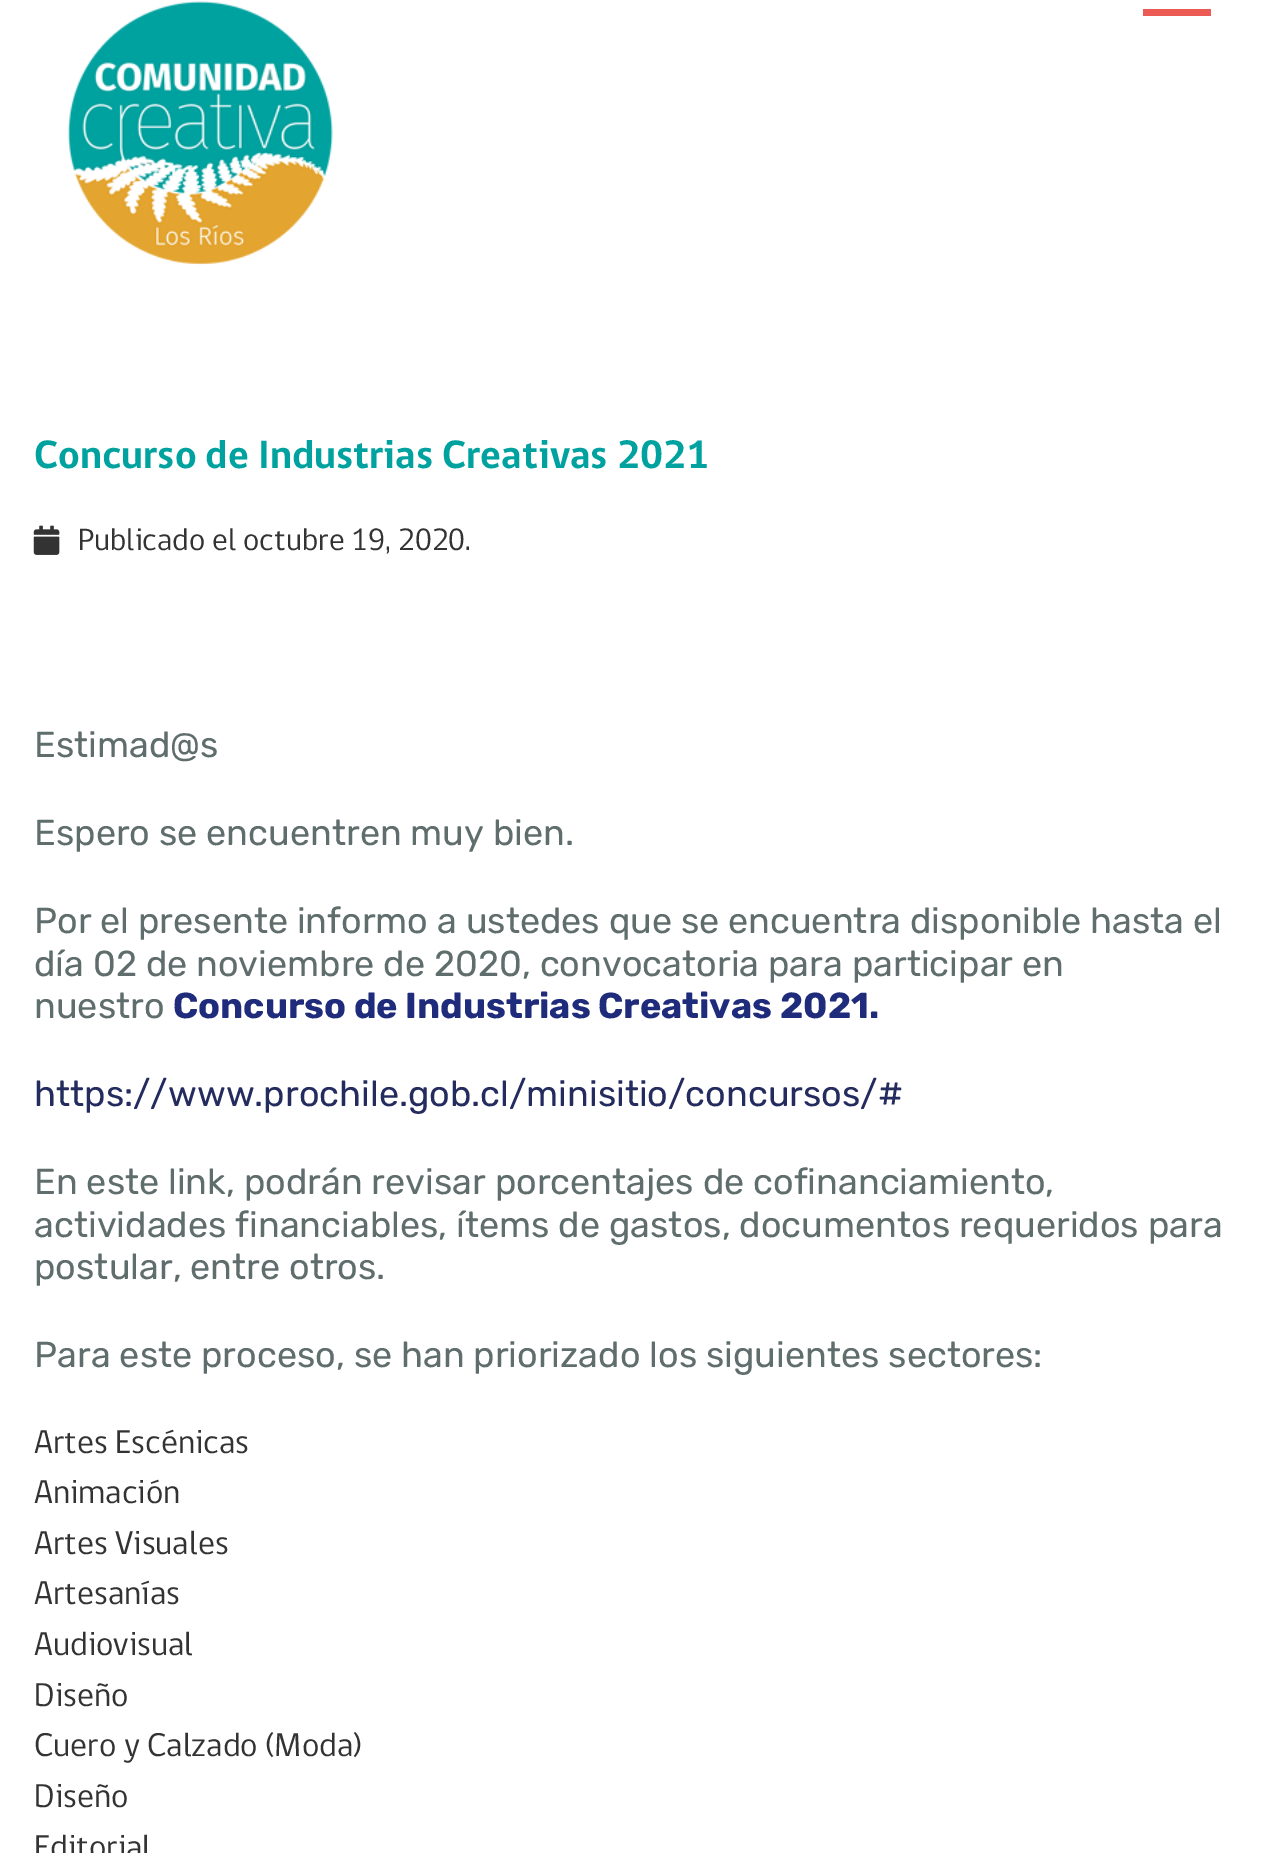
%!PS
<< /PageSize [1273 1853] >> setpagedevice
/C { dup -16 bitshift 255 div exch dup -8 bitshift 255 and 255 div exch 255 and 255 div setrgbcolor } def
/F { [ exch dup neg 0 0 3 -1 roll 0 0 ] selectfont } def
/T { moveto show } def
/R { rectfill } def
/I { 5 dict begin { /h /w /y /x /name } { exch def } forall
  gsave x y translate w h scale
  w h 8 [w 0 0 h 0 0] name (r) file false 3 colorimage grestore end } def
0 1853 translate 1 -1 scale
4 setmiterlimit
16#FFFFFF C
0 0 1273 1853 R
(1.rgb) 67 1 266 264 I
16#EC5B53 C
1143 9 68 7 R
/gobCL-Bold 40.5 F
16#00A29F C
(Concurso de Industrias Creativas 2021) 34 468 T
(2.rgb) 33 525 27 30 I
/gobCL-Regular 31.5 F
16#333333 C
(Publicado el octubre 19, 2020.) 78 550 T
/Rubik-Regular 36 F
16#606D6D C
(Estimad@s) 34 757 T
(Espero se encuentren muy bien.) 34 845 T
(Por el presente informo a ustedes que se encuentra disponible hasta el) 34 933 T
(día 02 de noviembre de 2020, convocatoria para participar en) 34 976 T
(nuestro) 34 1018 T
/Rubik-Bold 36 F
16#1F2B7B C
(Concurso de Industrias Creativas 2021.) 173 1018 T
/Rubik-Regular 36 F
16#242B5E C
(https://www.prochile.gob.cl/minisitio/concursos/#) 34 1106 T
16#606D6D C
(En este link, podrán revisar porcentajes de cofinanciamiento,) 34 1194 T
(actividades financiables, ítems de gastos, documentos requeridos para) 34 1237 T
(postular, entre otros.) 34 1279 T
(Para este proceso, se han priorizado los siguientes sectores:) 34 1367 T
/gobCL-Regular 33.75 F
16#333333 C
(Artes Escénicas) 34 1453 T
(Animación) 34 1503 T
(Artes Visuales) 34 1554 T
(Artesanías) 34 1604 T
(Audiovisual) 34 1655 T
(Diseño) 34 1706 T
(Cuero y Calzado \(Moda\)) 34 1756 T
(Diseño) 34 1807 T
(Editorial) 34 1858 T
showpage
